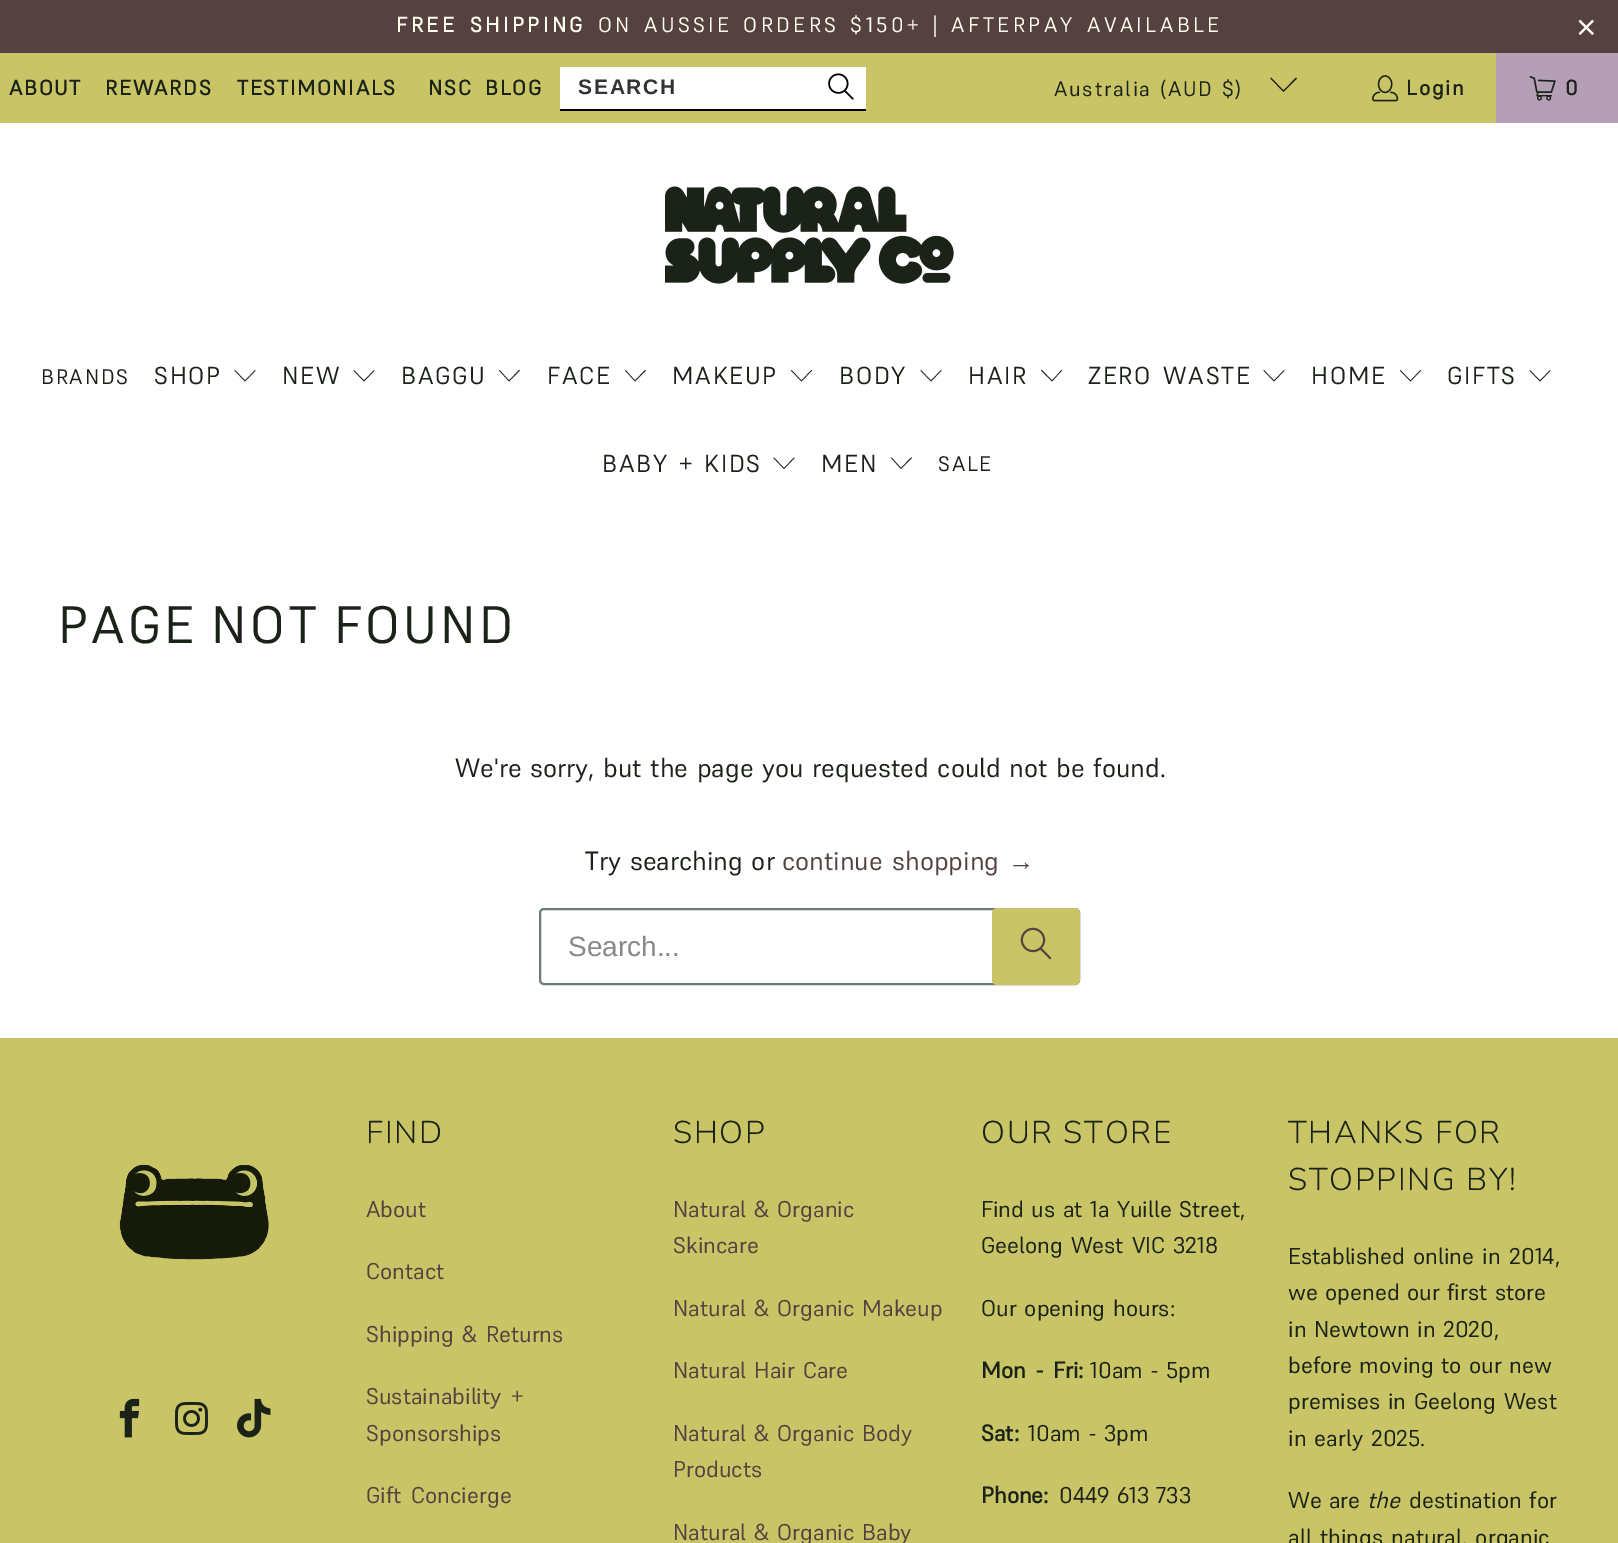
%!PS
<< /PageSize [1618 1543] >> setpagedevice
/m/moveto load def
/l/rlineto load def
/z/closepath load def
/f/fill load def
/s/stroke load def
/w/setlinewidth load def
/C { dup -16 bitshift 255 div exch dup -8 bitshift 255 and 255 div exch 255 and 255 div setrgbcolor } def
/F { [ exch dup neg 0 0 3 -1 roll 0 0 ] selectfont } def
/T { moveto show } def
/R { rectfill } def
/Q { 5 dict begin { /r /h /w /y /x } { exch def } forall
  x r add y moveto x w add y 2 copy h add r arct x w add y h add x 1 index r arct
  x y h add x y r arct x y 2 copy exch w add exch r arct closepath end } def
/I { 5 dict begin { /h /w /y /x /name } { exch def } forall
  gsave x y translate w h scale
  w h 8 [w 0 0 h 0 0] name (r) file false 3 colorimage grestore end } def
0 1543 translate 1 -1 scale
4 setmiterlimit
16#FFFFFF C
0 0 1618 1543 R
16#564141 C
0 0 1618 53 R
/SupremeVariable-Bold 21 F
16#FFFEEE C
396 32 m 4 0 32 3.5 0 (FREE SHIPPING) awidthshow
/SupremeVariable-Regular 21 F
598 32 m 1.75 0 32 3.5 0 (ON AUSSIE ORDERS $150+ | AFTERPAY AVAILABLE) awidthshow
/LiberationSans-Regular 35 F
1576 39 m 3.5 0 (×) ashow
16#C9C465 C
0 53 1496 70 R
/SupremeVariable-Bold 21 F
16#1B2319 C
9 95 m 1.75 0 (ABOUT) ashow
105 95 m 1.75 0 (REWARDS) ashow
237 95 m 1.75 0 (TESTIMONIALS) ashow
428 95 m 6 0 32 1.75 0 (NSC BLOG) awidthshow
16#FFFFFF C
560 67 306 42 R
16#000000 C
560 109 306 2 R
/LiberationSans-Bold 21 F
16#333333 C
578 94 m 1.75 0 (SEARCH) ashow
(1.rgb) 828 73 26 27 I
/SupremeVariable-Regular 21 F
16#1B2319 C
1054 96 m 1 0 32 1.75 0 (Australia \(AUD $\)) awidthshow
1283.5 92 m -13 -13.5 l .5 -1 l 12.5 13 l 12.5 -13 l 1 1 l z f
(2.rgb) 1372 75 27 27 I
/SupremeVariable-Bold 21 F
1406 95 m 1.75 0 (Login) ashow
16#B59FB7 C
1496 53 122 70 R
(3.rgb) 1529 76 27 25 I
16#1B2319 C
1565 95 m 1.75 0 (0) ashow
(4.rgb) 665 186 289 98 I
/SupremeVariable-Regular 21 F
41 384 m 1.75 0 (BRANDS) ashow
/SupremeVariable-Regular 24.5 F
154 384 m 1.75 0 (SHOP) ashow
245 381.5 m -10.5 -11 l .5 -.5 l 10 10.5 l 10 -10.5 l .5 .5 l z f
282 384 m 1.75 0 (NEW) ashow
364 381.5 m -10.5 -11 l .5 -.5 l 10 10.5 l 10 -10.5 l .5 .5 l z f
401 384 m 1.75 0 (BAGGU) ashow
509 381.5 m -10 -11 l .5 -.5 l 9.5 10.5 l 10 -10.5 l 1 .5 l z f
547 384 m 1.75 0 (FACE) ashow
635 381.5 m -10 -11 l .5 -.5 l 9.5 10.5 l 10 -10.5 l 1 .5 l z f
672 384 m 1.75 0 (MAKEUP) ashow
801.5 381.5 m -10.5 -11 l .5 -.5 l 10 10.5 l 10 -10.5 l .5 .5 l z f
839 384 m 1.75 0 (BODY) ashow
931 381.5 m -10.5 -11 l .5 -.5 l 10 10.5 l 10 -10.5 l .5 .5 l z f
968 384 m 1.75 0 (HAIR) ashow
1052 381.5 m -11 -11 l 1 -.5 l 10 10.5 l 9.5 -10.5 l .5 .5 l z f
1088 384 m 3 0 32 1.75 0 (ZERO WASTE) awidthshow
1274 381.5 m -10.5 -11 l .5 -.5 l 10 10.5 l 10 -10.5 l .5 .5 l z f
1311 384 m 1.75 0 (HOME) ashow
1410.5 381.5 m -10.5 -11 l .5 -.5 l 10 10.5 l 10 -10.5 l .5 .5 l z f
1447 384 m 1.75 0 (GIFTS) ashow
1540 381.5 m -10.5 -11 l .5 -.5 l 10 10.5 l 10 -10.5 l .5 .5 l z f
602 472 m 2 0 32 1.75 0 (BABY + KIDS) awidthshow
784 469 m -10.5 -11 l .5 -.5 l 10 10.5 l 10 -10.5 l .5 .5 l z f
821 472 m 1.75 0 (MEN) ashow
901 469 m -10 -11 l .5 -.5 l 9.5 10.5 l 10 -10.5 l 1 .5 l z f
/SupremeVariable-Regular 21 F
938 471 m 1.75 0 (SALE) ashow
/SupremeVariable-Regular 52.5 F
58 643 m -3 0 32 3.5 0 (PAGE NOT FOUND) awidthshow
/SupremeVariable-Regular 26.25 F
455 777 m 1.75 0 32 (We're sorry, but the page you requested could not be found.) widthshow
585 870 m 2 0 32 (Try searching or) widthshow
16#564141 C
782 870 m 2.5 0 32 (continue shopping) widthshow
/LiberationSerif-Regular 26.25 F
(→) 1008 870 T
16#6B7B7A C
2 w
540 909 539 75 4 Q s
/LiberationSans-Regular 28 F
16#888888 C
(Search...) 568 956 T
16#C9C465 C
992 908 88 77 5 Q f
(5.rgb) 1020 927 32 33 I
0 1038 1618 505 R
(6.rgb) 119 1164 150 96 I
(7.rgb) 119 1398 21 40 I
(8.rgb) 175 1402 33 33 I
(9.rgb) 237 1398 34 40 I
/Nunito-Light 31.5 F
16#1B2319 C
366 1143 m 1.75 0 (FIND) ashow
/SupremeVariable-Regular 22.75 F
16#564141 C
(About) 366 1217 T
(Contact) 366 1279 T
366 1342 m 2.5 0 32 (Shipping & Returns) widthshow
366 1404 m 4 0 32 (Sustainability +) widthshow
(Sponsorships) 366 1441 T
366 1503 m 4 0 32 (Gift Concierge) widthshow
/Nunito-Light 31.5 F
16#1B2319 C
673 1143 m 1.75 0 (SHOP) ashow
/SupremeVariable-Regular 22.75 F
16#564141 C
673 1217 m 2 0 32 (Natural & Organic) widthshow
(Skincare) 673 1253 T
673 1316 m 2 0 32 (Natural & Organic Makeup) widthshow
673 1378 m 2 0 32 (Natural Hair Care) widthshow
673 1441 m 2 0 32 (Natural & Organic Body) widthshow
(Products) 673 1477 T
673 1540 m 2 0 32 (Natural & Organic Baby) widthshow
/Nunito-Light 31.5 F
16#1B2319 C
981 1143 m 1.75 0 (OUR STORE) ashow
/SupremeVariable-Regular 22.75 F
981 1217 m 1.5 0 32 (Find us at 1a Yuille Street,) widthshow
981 1253 m 2 0 32 (Geelong West VIC 3218) widthshow
981 1316 m 2 0 32 (Our opening hours:) widthshow
/SupremeVariable-Bold 22.75 F
981 1378 m 3 0 32 (Mon - Fri:) widthshow
/SupremeVariable-Regular 22.75 F
1090 1378 m 1 0 32 (10am - 5pm) widthshow
/SupremeVariable-Bold 22.75 F
(Sat:) 981 1441 T
/SupremeVariable-Regular 22.75 F
1028 1441 m 1 0 32 (10am - 3pm) widthshow
/SupremeVariable-Bold 22.75 F
(Phone:) 981 1503 T
/SupremeVariable-Regular 22.75 F
1059 1503 m 1 0 32 (0449 613 733) widthshow
/Nunito-Light 31.5 F
1288 1143 m 1.75 0 (THANKS FOR) ashow
1288 1190 m 1.75 0 (STOPPING BY!) ashow
/SupremeVariable-Regular 22.75 F
1288 1264 m 2.5 0 32 (Established online in 2014,) widthshow
1288 1300 m 1.5 0 32 (we opened our first store) widthshow
1288 1337 m 1.5 0 32 (in Newtown in 2020,) widthshow
1288 1373 m 1.5 0 32 (before moving to our new) widthshow
1288 1409 m 2 0 32 (premises in Geelong West) widthshow
1288 1446 m 2 0 32 (in early 2025.) widthshow
1288 1508 m 1 0 32 (We are) widthshow
/SupremeVariable-Italic 22.75 F
(the) 1367 1508 T
/SupremeVariable-Regular 22.75 F
1409 1508 m 2 0 32 (destination for) widthshow
1288 1545 m 2.5 0 32 (all things natural, organic) widthshow
showpage
